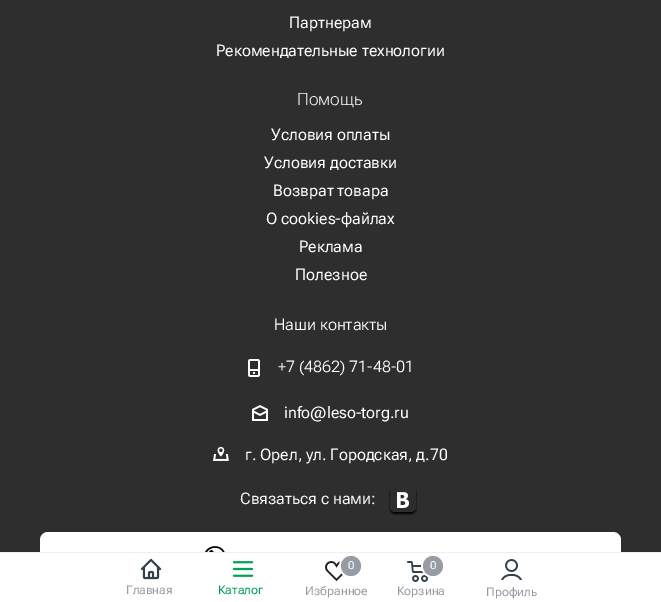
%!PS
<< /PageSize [661 602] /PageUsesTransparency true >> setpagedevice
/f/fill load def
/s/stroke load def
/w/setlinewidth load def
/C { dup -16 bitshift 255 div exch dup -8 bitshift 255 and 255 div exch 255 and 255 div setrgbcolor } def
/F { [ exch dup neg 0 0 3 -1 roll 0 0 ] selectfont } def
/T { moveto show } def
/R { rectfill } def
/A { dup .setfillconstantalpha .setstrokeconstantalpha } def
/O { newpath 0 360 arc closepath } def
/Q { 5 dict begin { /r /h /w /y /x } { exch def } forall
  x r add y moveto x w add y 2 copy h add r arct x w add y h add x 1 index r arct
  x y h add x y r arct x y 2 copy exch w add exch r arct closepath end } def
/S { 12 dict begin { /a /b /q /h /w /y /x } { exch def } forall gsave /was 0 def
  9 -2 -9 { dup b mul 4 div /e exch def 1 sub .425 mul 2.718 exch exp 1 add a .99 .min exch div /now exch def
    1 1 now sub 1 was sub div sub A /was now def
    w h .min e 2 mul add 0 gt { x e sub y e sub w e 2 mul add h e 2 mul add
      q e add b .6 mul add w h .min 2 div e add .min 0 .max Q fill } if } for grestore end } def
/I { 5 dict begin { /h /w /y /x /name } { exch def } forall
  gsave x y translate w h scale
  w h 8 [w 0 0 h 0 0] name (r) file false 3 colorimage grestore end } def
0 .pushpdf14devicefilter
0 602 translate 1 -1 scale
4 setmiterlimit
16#2E2E2F C
0 0 661 602 R
/RobotoFlex-Regular 16 F
16#FFFFFF C
(Партнерам) 289 28 T
(Рекомендательные технологии) 216 56 T
/RobotoFlex-ExtraLight 17 F
(Помощь) 297 105 T
/RobotoFlex-Regular 16 F
(Условия оплаты) 271 140 T
(Условия доставки) 264 168 T
(Возврат товара) 273 196 T
(О cookies-файлах) 266 224 T
(Реклама) 299 252 T
(Полезное) 295 280 T
/RobotoFlex-Light 16 F
(Наши контакты) 274 330 T
(1.rgb) 248 359 12 18 I
(+7 \(4862\) 71-48-01) 278 372 T
(2.rgb) 252 405 16 16 I
/RobotoFlex-Regular 16 F
(info@leso-torg.ru) 284 418 T
(3.rgb) 213 446 16 15 I
(г. Орел, ул. Городская, д.70) 245 460 T
16#F7F7F7 C
(Связаться с нами:) 240 504 T
16#000000 C
390 488 26 26 5 1 1 S
16#2D2D2D C
390 486 26 26 5 Q f
(4.rgb) 397 492 12 16 I
16#FFFFFF C
40 532 581 50 8 Q f
(5.rgb) 205 546 20 6 I
0 553 661 49 R
16#EEEEEE C
0 552 661 1 R
(6.rgb) 140 558 22 22 I
/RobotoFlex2-Regular 12 F
16#969BA5 C
(Главная) 126 594 T
(7.rgb) 232 561 22 16 I
16#00A154 C
(Каталог) 218 594 T
(8.rgb) 325 561 20 20 I
16#FFFFFF C
2 w
351 566 11 O s
16#969BA5 C
351 566 10 O f
/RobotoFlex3-Regular 11 F
16#FFFFFF C
(0) 348 569 T
/RobotoFlex2-Regular 12 F
16#969BA5 C
(Избранное) 305 595 T
(9.rgb) 407 561 21 21 I
16#FFFFFF C
433 566 11 O s
16#969BA5 C
433 566 10 O f
/RobotoFlex3-Regular 11 F
16#FFFFFF C
(0) 430 569 T
/RobotoFlex2-Regular 12 F
16#969BA5 C
(Корзина) 397 595 T
(10.rgb) 501 559 21 21 I
(Профиль) 486 596 T
.poppdf14devicefilter showpage
